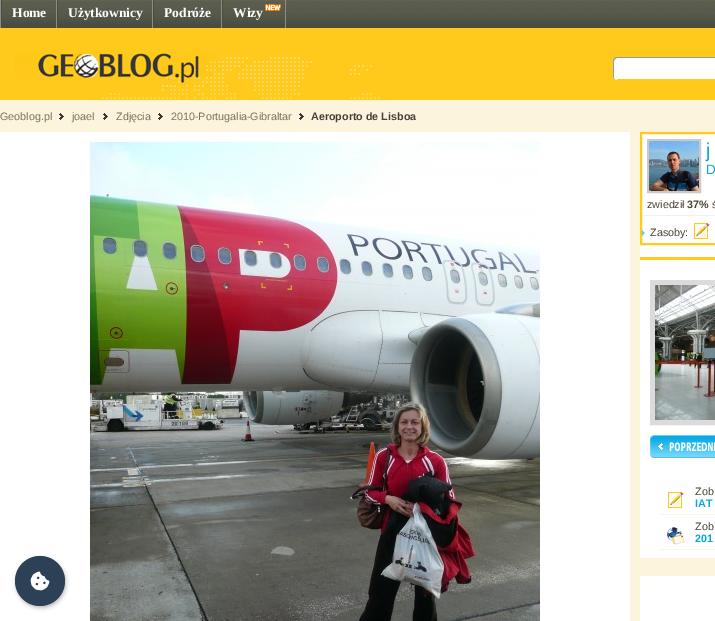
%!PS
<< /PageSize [715 621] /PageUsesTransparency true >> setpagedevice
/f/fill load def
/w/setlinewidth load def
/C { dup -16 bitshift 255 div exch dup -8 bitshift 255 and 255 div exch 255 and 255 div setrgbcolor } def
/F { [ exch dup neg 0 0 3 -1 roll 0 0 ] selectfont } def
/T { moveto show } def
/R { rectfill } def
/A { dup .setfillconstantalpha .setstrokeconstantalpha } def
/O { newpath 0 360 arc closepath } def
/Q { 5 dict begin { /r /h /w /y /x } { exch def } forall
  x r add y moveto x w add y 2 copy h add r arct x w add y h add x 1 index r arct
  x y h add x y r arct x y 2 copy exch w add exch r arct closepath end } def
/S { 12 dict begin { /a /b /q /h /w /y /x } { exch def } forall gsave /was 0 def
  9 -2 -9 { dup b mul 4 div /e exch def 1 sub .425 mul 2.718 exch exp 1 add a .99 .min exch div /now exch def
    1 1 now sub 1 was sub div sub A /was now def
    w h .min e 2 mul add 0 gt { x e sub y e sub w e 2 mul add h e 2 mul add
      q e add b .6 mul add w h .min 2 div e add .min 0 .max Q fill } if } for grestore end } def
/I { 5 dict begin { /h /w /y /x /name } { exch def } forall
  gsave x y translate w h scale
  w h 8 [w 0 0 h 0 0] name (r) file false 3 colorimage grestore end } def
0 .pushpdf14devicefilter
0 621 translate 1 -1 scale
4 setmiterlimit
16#FCF4DD C
0 0 715 621 R
(1.rgb) 2 0 713 28 I
16#8C8D83 C
0 0 1 28 R
56 0 1 28 R
16#494A41 C
1 0 1 28 R
/LiberationSerif-Bold 13.5 F
16#FFFFFF C
(Home) 12 17 T
16#8C8D83 C
152 0 1 28 R
16#494A41 C
57 0 1 28 R
16#FFFFFF C
(Użytkownicy) 68 17 T
16#8C8D83 C
221 0 1 28 R
16#494A41 C
153 0 1 28 R
16#FFFFFF C
(Podróże) 164 17 T
16#8C8D83 C
285 0 1 28 R
16#494A41 C
222 0 1 28 R
16#FFFFFF C
(Wizy) 233 17 T
(2.rgb) 265 4 16 7 I
16#FFCA1C C
0 28 715 72 R
(3.rgb) 0 52 380 48 I
(4.rgb) 613 56 4 25 I
16#FFFFFF C
617 78 98 1 R
(5.rgb) 617 56 98 22 I
/LiberationSans-Regular 10.75 F
16#76765C C
(Geoblog.pl) 0 120 T
(6.rgb) 59 113 5 7 I
(joael) 72 120 T
(6.rgb) 103 113 5 7 I
(Zdjęcia) 116 120 T
(6.rgb) 158 113 5 7 I
(2010-Portugalia-Gibraltar) 171 120 T
(6.rgb) 299 113 5 7 I
/LiberationSans-Bold 10.75 F
16#443F39 C
(Aeroporto de Lisboa) 311 120 T
16#FFFFFF C
0 132 630 489 R
(7.rgb) 90 142 450 479 I
640 134 75 424 R
16#FFCA1C C
2 w
641 133 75 111 rectstroke
16#F0F0F0 C
642 215 73 1 R
16#CACACA C
648 140 52 52 rectstroke
(8.rgb) 649 141 50 50 I
/LiberationSans-Regular 20 F
16#0BA7D8 C
(j) 706 157 T
/LiberationSans-Regular 13.5 F
(D) 706 174 T
/LiberationSans-Regular 10.75 F
16#4B4233 C
(zwiedził) 647 208 T
/LiberationSans-Bold 10.75 F
(37%) 687 208 T
/LiberationSans-Regular 10.75 F
(ś) 712 208 T
(9.rgb) 642 230 3 6 I
(Zasoby:) 650 236 T
(10.rgb) 694 223 16 16 I
(11.rgb) 640 257 75 20 I
16#DBDBDB C
5 w
652.5 282.5 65 140 rectstroke
(12.rgb) 655 285 60 135 I
(13.rgb) 650 435 65 23 I
16#FAF5DF C
660 514 55 1 R
(10.rgb) 668 492 16 16 I
16#4B4233 C
(Zob) 695 495 T
/LiberationSans-Bold 10.75 F
16#0BA7D8 C
(IAT) 695 507 T
16#FAF5DF C
660 549 55 1 R
(14.rgb) 667 527 18 18 I
/LiberationSans-Regular 10.75 F
16#4B4233 C
(Zob) 695 530 T
/LiberationSans-Bold 10.75 F
16#0BA7D8 C
(201) 695 542 T
16#FFFFFF C
640 576 75 45 R
16#000000 C
16 558 50 50 25 2 .25 S
16#2D4156 C
40 581 25 O f
(15.rgb) 30 571 20 20 I
.poppdf14devicefilter showpage
